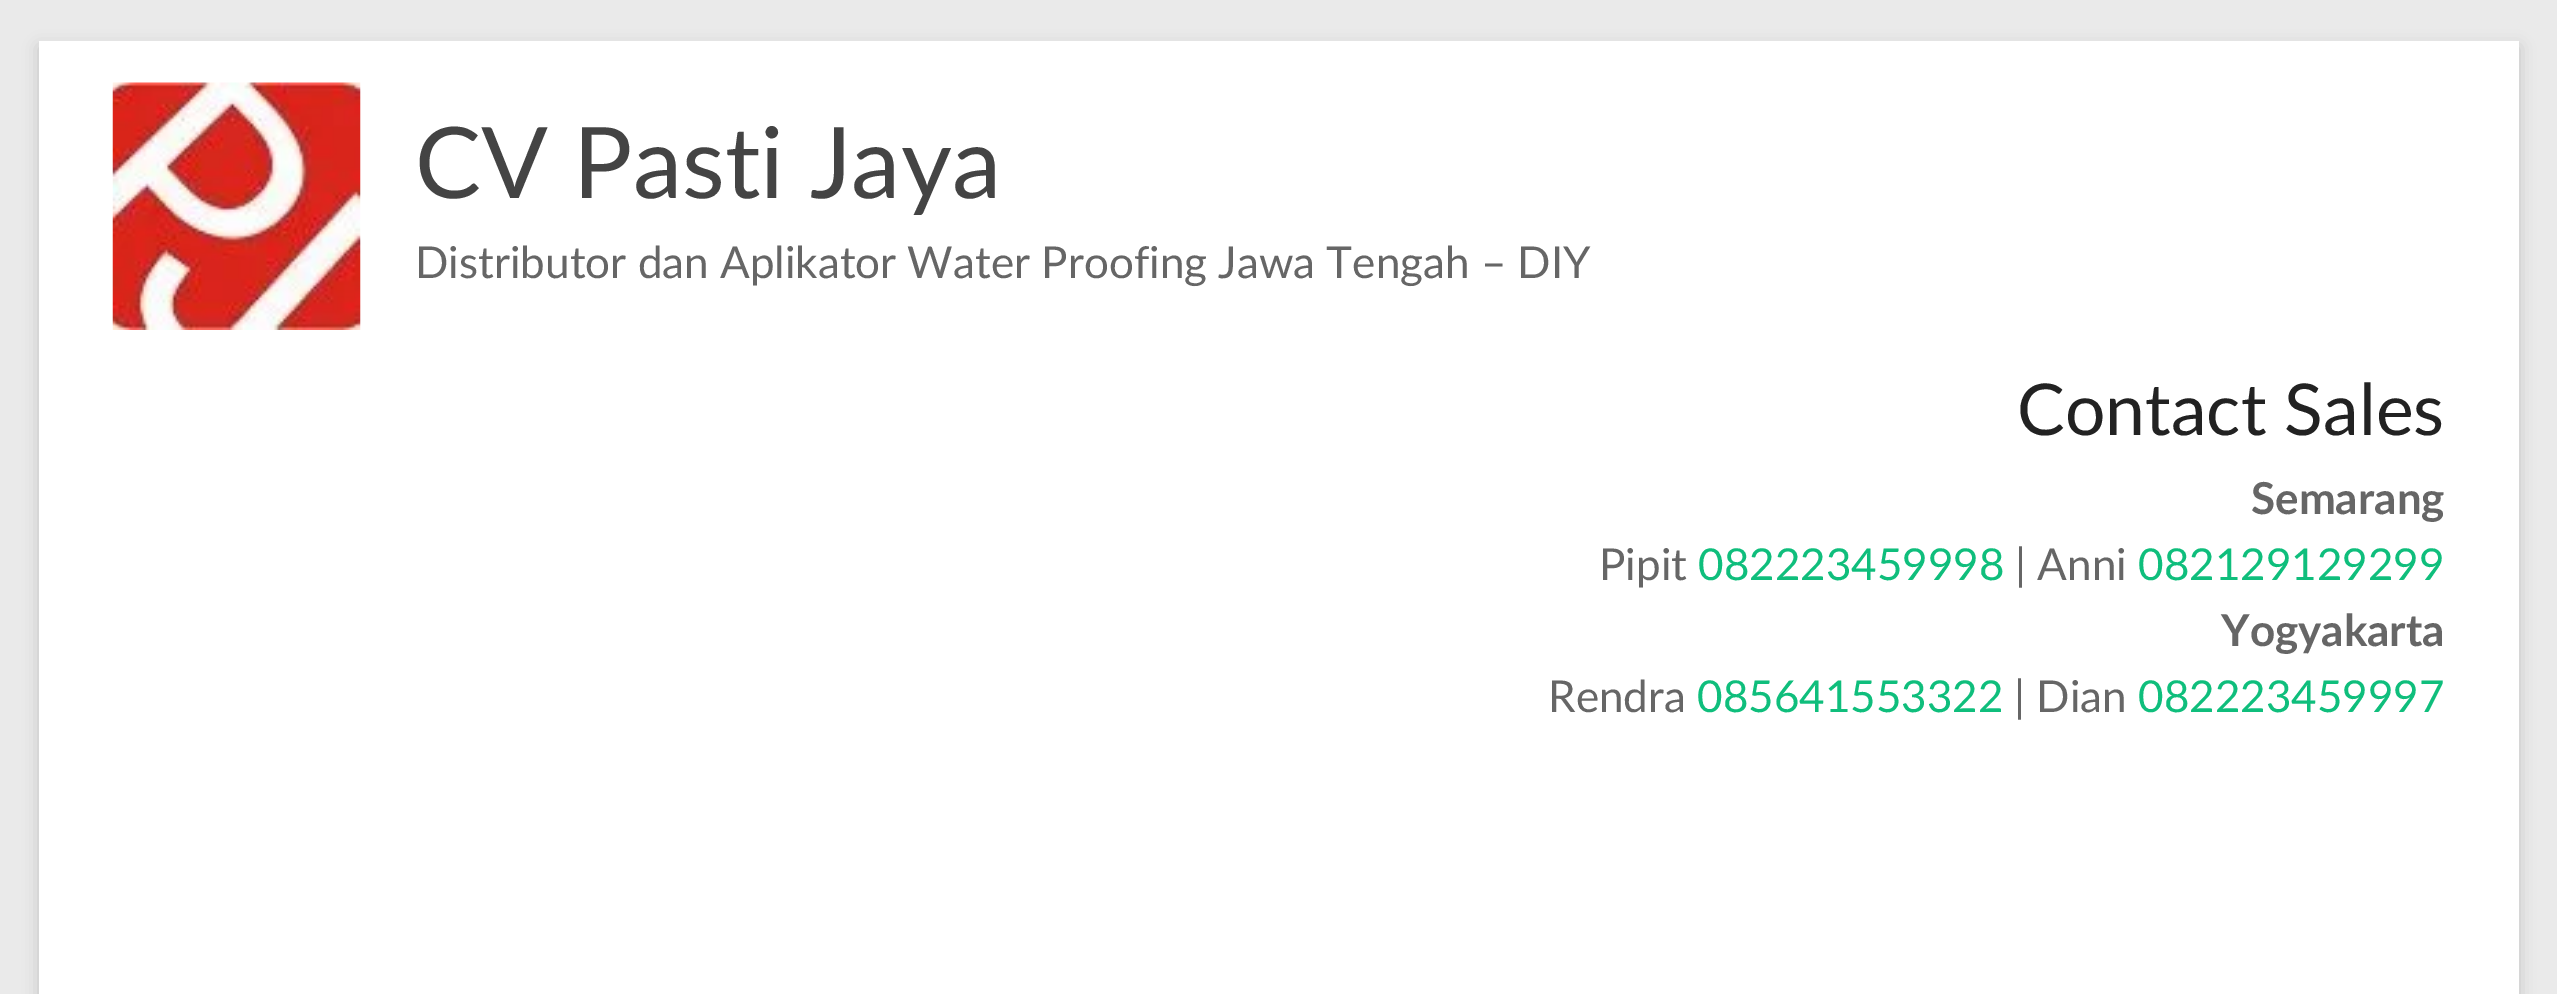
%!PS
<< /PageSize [2557 994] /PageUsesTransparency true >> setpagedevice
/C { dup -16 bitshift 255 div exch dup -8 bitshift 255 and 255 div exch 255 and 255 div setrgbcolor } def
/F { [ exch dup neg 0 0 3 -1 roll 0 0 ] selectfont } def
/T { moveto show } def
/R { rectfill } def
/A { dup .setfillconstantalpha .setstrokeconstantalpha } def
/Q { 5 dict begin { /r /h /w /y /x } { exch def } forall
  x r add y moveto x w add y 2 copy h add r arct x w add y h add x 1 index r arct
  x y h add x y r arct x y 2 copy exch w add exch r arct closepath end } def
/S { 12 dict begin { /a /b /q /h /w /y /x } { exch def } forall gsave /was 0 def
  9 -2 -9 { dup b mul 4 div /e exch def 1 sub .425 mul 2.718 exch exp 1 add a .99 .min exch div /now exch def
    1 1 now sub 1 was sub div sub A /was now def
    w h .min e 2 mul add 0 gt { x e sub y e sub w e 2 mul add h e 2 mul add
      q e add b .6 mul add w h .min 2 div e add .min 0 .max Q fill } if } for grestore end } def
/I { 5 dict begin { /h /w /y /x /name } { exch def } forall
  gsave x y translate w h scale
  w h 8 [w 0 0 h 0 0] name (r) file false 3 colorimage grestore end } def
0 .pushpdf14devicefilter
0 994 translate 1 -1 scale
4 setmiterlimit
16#EAEAEA C
0 0 2557 994 R
16#646464 C
39 47 2480 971 0 8 .3 S
16#FFFFFF C
39 41 2480 953 R
(1.rgb) 112 82 249 248 I
/Lato-Regular 99 F
16#444444 C
(CV Pasti Jaya) 415 198 T
/Lato-Regular 44 F
16#666666 C
(Distributor dan Aplikator Water Proofing Jawa Tengah – DIY) 415 278 T
/Lato-Regular 71.5 F
16#222222 C
(Contact Sales) 2017 435 T
/Lato-Bold 44 F
16#666666 C
(Semarang) 2251 514 T
/Lato-Regular 44 F
(Pipit) 1599 580 T
16#0FBE7C C
(082223459998) 1698 580 T
16#666666 C
(| Anni) 2015 580 T
16#0FBE7C C
(082129129299) 2138 580 T
/Lato-Bold 44 F
16#666666 C
(Yogyakarta) 2221 646 T
/Lato-Regular 44 F
(Rendra) 1548 712 T
16#0FBE7C C
(085641553322) 1697 712 T
16#666666 C
(| Dian) 2014 712 T
16#0FBE7C C
(082223459997) 2138 712 T
.poppdf14devicefilter showpage
